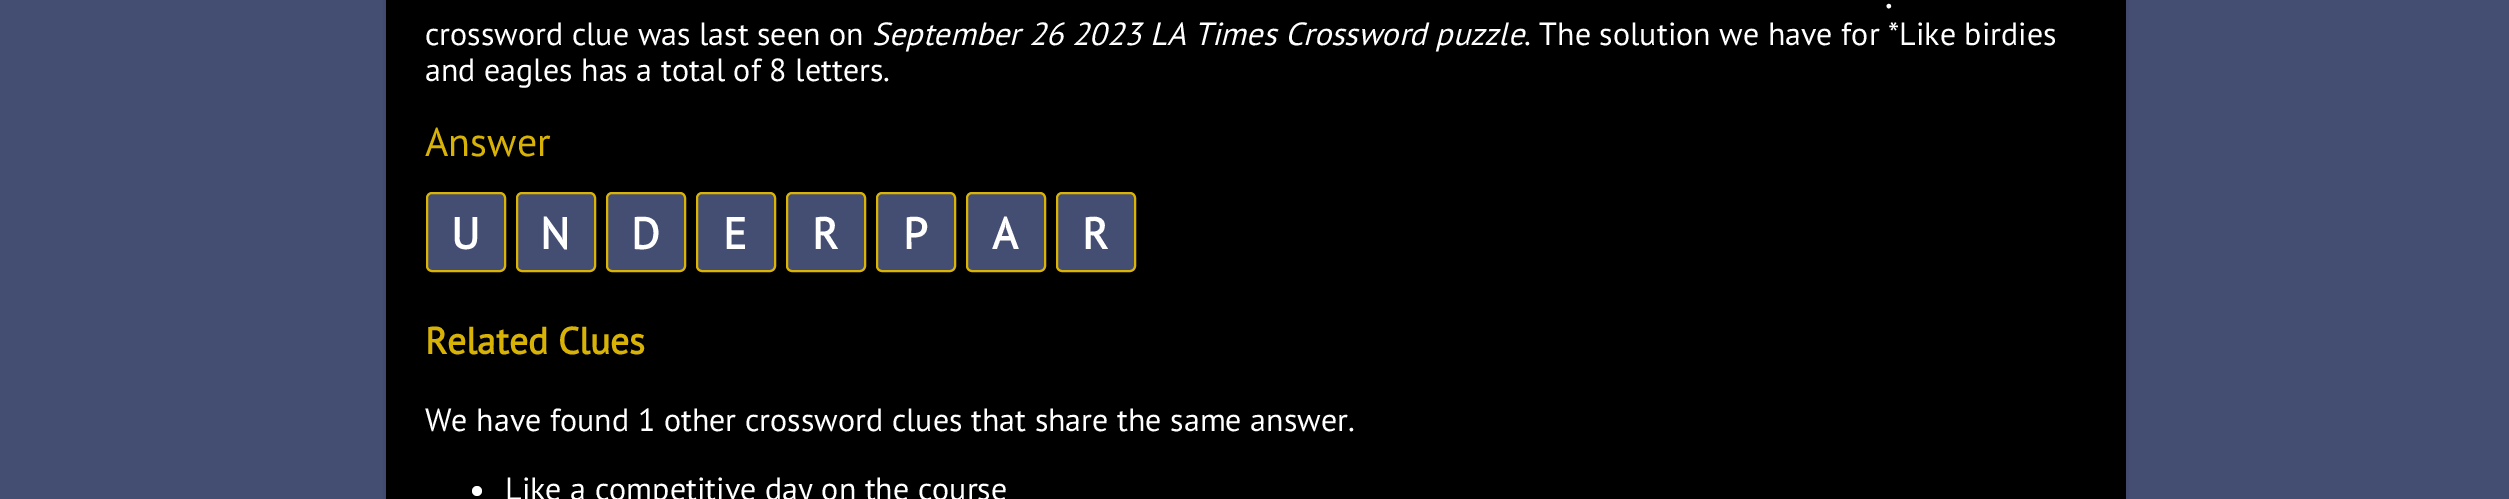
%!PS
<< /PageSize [2509 499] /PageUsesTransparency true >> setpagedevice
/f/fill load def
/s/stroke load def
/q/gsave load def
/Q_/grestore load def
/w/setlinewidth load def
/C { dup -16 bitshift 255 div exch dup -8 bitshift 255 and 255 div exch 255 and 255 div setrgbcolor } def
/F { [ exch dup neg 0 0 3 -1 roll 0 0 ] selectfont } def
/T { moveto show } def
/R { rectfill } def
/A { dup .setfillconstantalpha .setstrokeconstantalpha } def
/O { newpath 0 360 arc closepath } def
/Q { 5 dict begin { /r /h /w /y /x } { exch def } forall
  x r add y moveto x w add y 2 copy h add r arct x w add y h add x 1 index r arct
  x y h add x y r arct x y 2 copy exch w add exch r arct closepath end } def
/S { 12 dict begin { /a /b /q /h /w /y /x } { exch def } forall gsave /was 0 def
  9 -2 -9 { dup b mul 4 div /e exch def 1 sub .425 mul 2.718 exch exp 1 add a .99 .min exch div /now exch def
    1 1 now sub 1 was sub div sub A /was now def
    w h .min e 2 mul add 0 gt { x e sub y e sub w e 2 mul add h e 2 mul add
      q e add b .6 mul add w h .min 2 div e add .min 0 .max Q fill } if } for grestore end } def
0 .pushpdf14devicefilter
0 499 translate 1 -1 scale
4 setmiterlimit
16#444D72 C
0 0 2509 499 R
16#000000 C
386 -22 1740 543 10 4 .1 S
386 0 1740 499 R
/PTSans-Bold 32 F
16#FFFFFF C
(.) 1885 8 T
/PTSans-Regular 32 F
(crossword clue was last seen on) 425 45 T
/PTSans-Italic 32 F
(September 26 2023 LA Times Crossword puzzle) 872 45 T
/PTSans-Regular 32 F
(. The solution we have for *Like birdies) 1524 45 T
(and eagles has a total of 8 letters.) 425 81 T
/PTSans-Regular 40 F
16#D8B306 C
(Answer) 425 156 T
16#444D72 C
427 193 78 78 5 Q q f Q_
16#D9B406 C
2 w
s
/PTSans-Bold 44 F
16#FFFFFF C
(U) 451 249 T
16#444D72 C
517 193 78 78 5 Q q f Q_
16#D9B406 C
s
16#FFFFFF C
(N) 540 249 T
16#444D72 C
607 193 78 78 5 Q q f Q_
16#D9B406 C
s
16#FFFFFF C
(D) 631 249 T
16#444D72 C
697 193 78 78 5 Q q f Q_
16#D9B406 C
s
16#FFFFFF C
(E) 723 249 T
16#444D72 C
787 193 78 78 5 Q q f Q_
16#D9B406 C
s
16#FFFFFF C
(R) 812 249 T
16#444D72 C
877 193 78 78 5 Q q f Q_
16#D9B406 C
s
16#FFFFFF C
(P) 903 249 T
16#444D72 C
967 193 78 78 5 Q q f Q_
16#D9B406 C
s
16#FFFFFF C
(A) 992 249 T
16#444D72 C
1057 193 78 78 5 Q q f Q_
16#D9B406 C
s
16#FFFFFF C
(R) 1082 249 T
/PTSans-Bold 37.5 F
16#D8B306 C
(Related Clues) 425 354 T
/PTSans-Regular 32 F
16#FFFFFF C
(We have found 1 other crossword clues that share the same answer.) 425 431 T
477 491 5 O f
(Like a competitive day on the course) 505 500 T
.poppdf14devicefilter showpage
